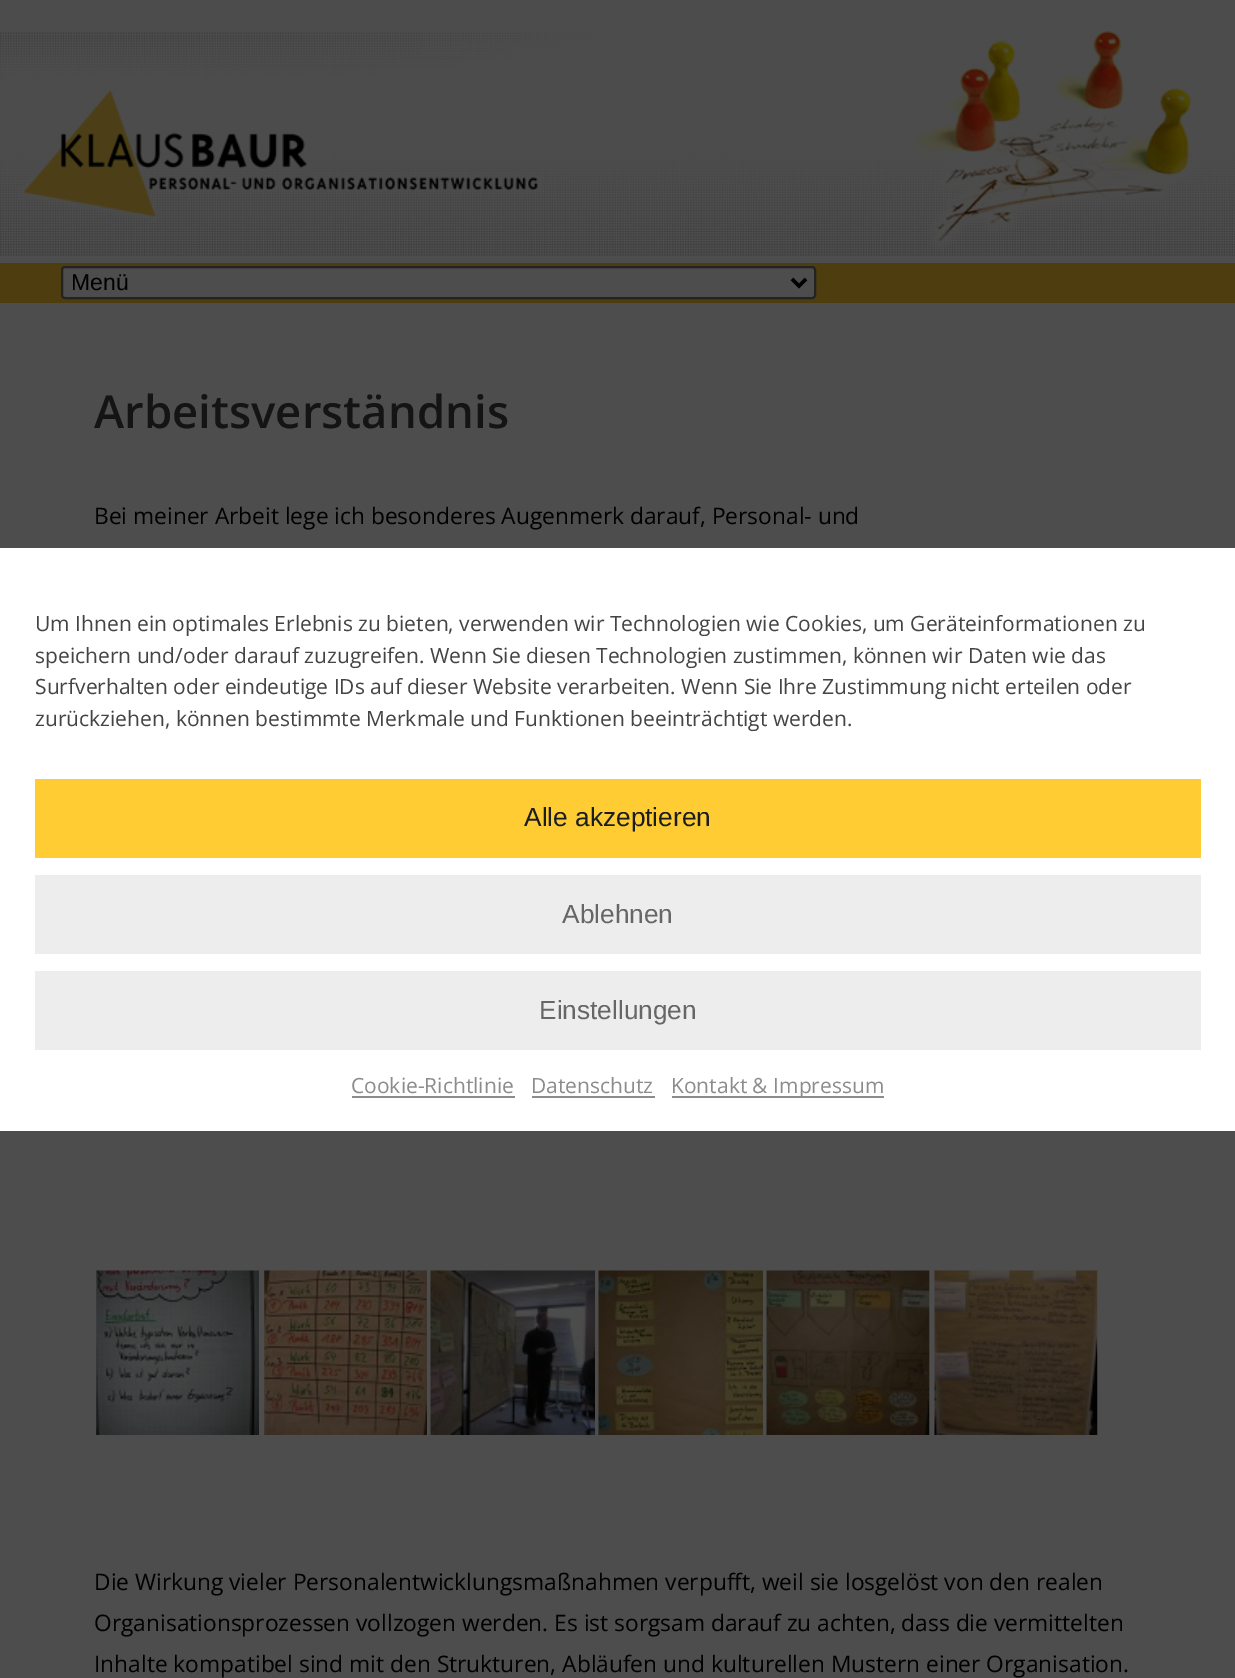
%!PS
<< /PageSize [1235 1678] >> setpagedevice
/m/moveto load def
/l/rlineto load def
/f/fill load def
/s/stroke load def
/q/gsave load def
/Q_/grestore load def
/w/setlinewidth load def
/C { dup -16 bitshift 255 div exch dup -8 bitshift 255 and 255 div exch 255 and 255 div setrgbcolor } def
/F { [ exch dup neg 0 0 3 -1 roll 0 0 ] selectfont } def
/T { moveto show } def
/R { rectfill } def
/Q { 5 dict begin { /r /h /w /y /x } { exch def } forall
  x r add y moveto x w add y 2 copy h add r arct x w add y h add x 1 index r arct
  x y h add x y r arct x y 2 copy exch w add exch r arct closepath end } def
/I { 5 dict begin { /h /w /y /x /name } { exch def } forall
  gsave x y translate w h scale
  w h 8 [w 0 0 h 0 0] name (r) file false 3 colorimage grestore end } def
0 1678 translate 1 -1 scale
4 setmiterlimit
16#4D4D4D C
0 0 1235 1678 R
(1.rgb) 0 0 1235 256 I
16#4D3D0F C
0 263 1235 40 R
16#4D4D4D C
62 267 753 31 3 Q q f Q_
16#232323 C
2 w
s
16#000000 C
3.5 w
792 279 m 7 7 l 7 -7 l s
/LiberationSans-Regular 23 F
(Menü) 71 290 T
/OpenSans-SemiBold 45.5 F
16#141414 C
(Arbeitsverständnis) 94 428 T
/OpenSans-Regular 22.75 F
16#000000 C
(Bei meiner Arbeit lege ich besonderes Augenmerk darauf, Personal- und) 94 524 T
(2.rgb) 96 1270 163 165 I
(3.rgb) 264 1270 163 165 I
(4.rgb) 430 1270 165 165 I
(5.rgb) 598 1270 165 165 I
(6.rgb) 766 1270 164 165 I
(7.rgb) 934 1270 164 165 I
(Die Wirkung vieler Personalentwicklungsmaßnahmen verpufft, weil sie losgelöst von den realen) 94 1590 T
(Organisationsprozessen vollzogen werden. Es ist sorgsam darauf zu achten, dass die vermittelten) 94 1631 T
(Inhalte kompatibel sind mit den Strukturen, Abläufen und kulturellen Mustern einer Organisation.) 94 1672 T
16#FFFFFF C
0 548 1235 583 R
/OpenSans-Regular 21 F
16#444444 C
(Um Ihnen ein optimales Erlebnis zu bieten, verwenden wir Technologien wie Cookies, um Geräteinformationen zu) 35 631 T
(speichern und/oder darauf zuzugreifen. Wenn Sie diesen Technologien zustimmen, können wir Daten wie das) 35 663 T
(Surfverhalten oder eindeutige IDs auf dieser Website verarbeiten. Wenn Sie Ihre Zustimmung nicht erteilen oder) 35 694 T
(zurückziehen, können bestimmte Merkmale und Funktionen beeinträchtigt werden.) 35 726 T
16#FFCC33 C
35 779 1166 79 R
/LiberationSans-Regular 26.25 F
16#191E23 C
(Alle akzeptieren) 524 826 T
16#EDEDED C
35 875 1166 79 R
16#666666 C
(Ablehnen) 562 923 T
16#EDEDED C
35 971 1166 79 R
16#666666 C
(Einstellungen) 539 1019 T
/OpenSans-Regular 21 F
16#8C8C8C C
(Cookie-Richtlinie) 351 1093 T
352 1096 163 2 R
(Datenschutz) 531 1093 T
532 1096 123 2 R
672 1096 212 2 R
(Kontakt & Impressum) 671 1093 T
showpage
